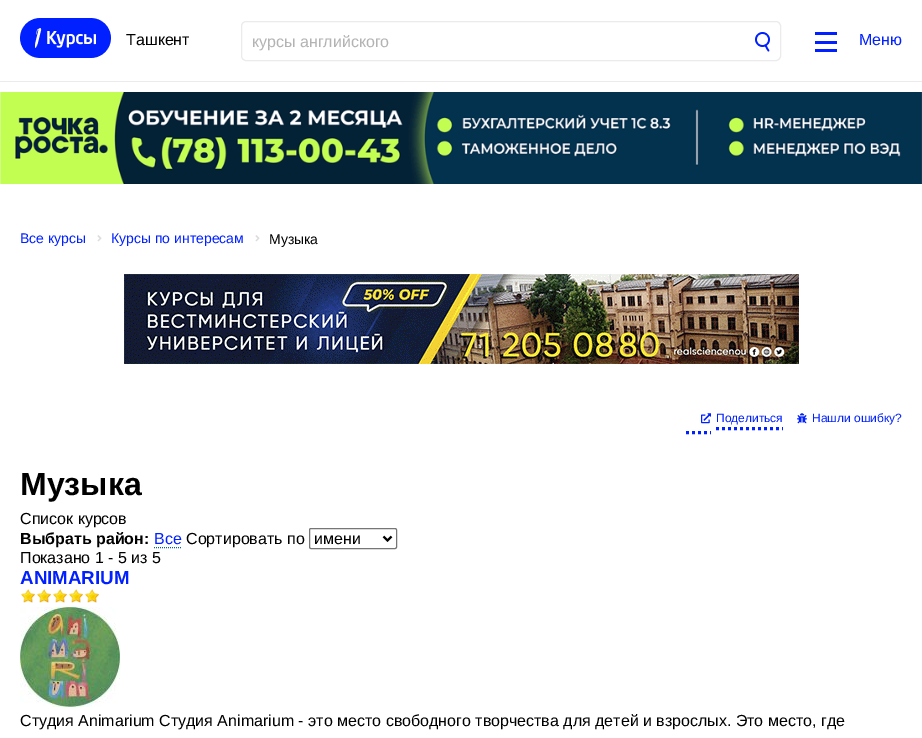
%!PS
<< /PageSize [922 738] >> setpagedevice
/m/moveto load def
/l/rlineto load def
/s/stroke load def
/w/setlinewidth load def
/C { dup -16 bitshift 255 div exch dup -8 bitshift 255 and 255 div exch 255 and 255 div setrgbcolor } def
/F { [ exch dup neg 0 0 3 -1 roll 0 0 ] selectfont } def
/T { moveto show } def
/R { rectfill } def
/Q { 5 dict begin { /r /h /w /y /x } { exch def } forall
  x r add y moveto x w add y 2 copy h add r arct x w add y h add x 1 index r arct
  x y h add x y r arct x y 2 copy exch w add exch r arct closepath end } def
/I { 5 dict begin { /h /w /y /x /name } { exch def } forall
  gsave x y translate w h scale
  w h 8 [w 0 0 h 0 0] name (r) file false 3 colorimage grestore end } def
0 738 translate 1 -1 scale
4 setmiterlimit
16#FFFFFF C
0 0 922 738 R
16#EBEBEB C
0 81 922 1 R
(1.rgb) 20 18 91 40 I
/LiberationSans-Regular 16 F
16#000000 C
(Ташкент) 126 45 T
16#EBEBEB C
241.5 21.5 539 39 4.5 Q s
16#B3B3B3 C
(курсы английского) 252 47 T
(2.rgb) 755 32 15 20 I
16#0020FF C
815 41 22 3 R
815 32 22 3 R
815 49 22 3 R
(Меню) 859 45 T
(3.rgb) 0 92 922 92 I
/LiberationSans-Regular 14 F
(Все курсы) 20 243 T
(4.rgb) 97 235 5 7 I
(Курсы по интересам) 111 243 T
(4.rgb) 255 235 5 7 I
16#000000 C
(Музыка) 269 244 T
(5.rgb) 124 274 675 90 I
16#0020FF C
3 w
[3 3] 0 setdash
686 432.5 m 25 0 l s
716 428.5 m 67 0 l s
(6.rgb) 701 413 10 11 I
/LiberationSans-Regular 12 F
(Поделиться) 716 422 T
(7.rgb) 797 413 10 11 I
(Нашли ошибку?) 812 422 T
/LiberationSans-Bold 32 F
16#000000 C
(Музыка) 20 495 T
/LiberationSans-Regular 16 F
(Список курсов) 20 524 T
/LiberationSans-Bold 16 F
(Выбрать район:) 20 544 T
/LiberationSans-Regular 16 F
16#0020FF C
(Все) 154 544 T
16#006699 C
1 w
[1 1] 0 setdash
154 547.5 m 27 0 l s
16#000000 C
(Сортировать по) 186 544 T
16#767676 C
[] 0 setdash
309.5 528.5 87 20 1.5 Q s
16#000000 C
2 w
383.5 536.5 m 4 4 l 4 -4 l s
(имени) 314 544 T
(Показано 1 - 5 из 5) 20 563 T
/LiberationSans-Bold 18.75 F
16#0020FF C
(ANIMARIUM) 20 584 T
(8.rgb) 21 589 14 14 I
(9.rgb) 37 589 14 14 I
(10.rgb) 53 589 14 14 I
(9.rgb) 69 589 14 14 I
(9.rgb) 85 589 14 14 I
(11.rgb) 20 607 100 100 I
/LiberationSans-Regular 16 F
16#000000 C
(Студия Animarium Студия Animarium - это место свободного творчества для детей и взрослых. Это место, где) 20 726 T
showpage
